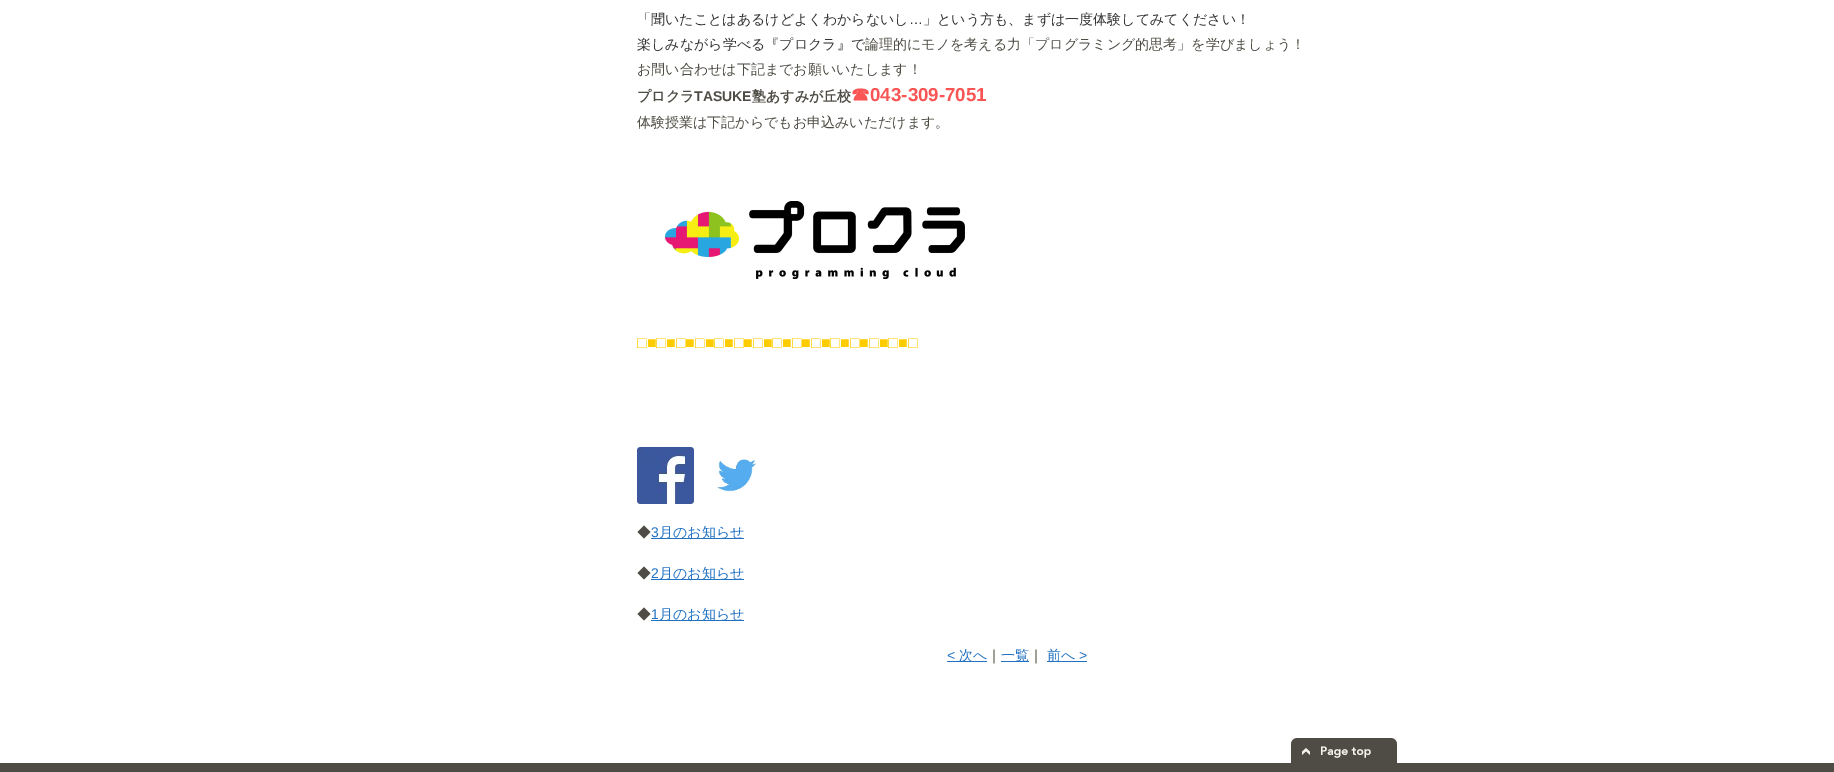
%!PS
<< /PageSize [1834 772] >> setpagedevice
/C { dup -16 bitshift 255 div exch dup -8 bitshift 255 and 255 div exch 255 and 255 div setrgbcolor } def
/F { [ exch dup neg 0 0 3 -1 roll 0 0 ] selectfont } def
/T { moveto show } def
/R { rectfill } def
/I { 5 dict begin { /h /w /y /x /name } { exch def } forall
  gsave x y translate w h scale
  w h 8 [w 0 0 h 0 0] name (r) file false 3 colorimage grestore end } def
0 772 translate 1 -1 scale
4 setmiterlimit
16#FFFFFF C
0 0 1834 772 R
/WenQuanYiZenHei-Medium 14 F
16#333333 C
(「聞いたことはあるけどよくわからないし) 637 24 T
/LiberationSans-Regular 14 F
(…) 909 24 T
/WenQuanYiZenHei-Medium 14 F
(」という方も、まずは一度体験してみてください！) 923 24 T
(楽しみながら学べる『プロクラ』で) 637 49 T
16#4E4C44 C
(論理的にモノを考える力「プログラミング的思考」を学びましょう！) 865 49 T
(お問い合わせは下記までお願いいたします！) 637 74 T
/WenQuanYiZenHei-Bold 14 F
(プロクラ) 637 101 T
/LiberationSans-Bold 14 F
(TASUKE) 694 101 T
/WenQuanYiZenHei-Bold 14 F
(塾あすみが丘校) 752 101 T
/WenQuanYiZenHei-Bold 18.75 F
16#F95555 C
(☎) 851 101 T
/LiberationSans-Bold 18.75 F
(043-309-7051) 870 101 T
/WenQuanYiZenHei-Medium 14 F
16#4E4C44 C
(体験授業は下記からでもお申込みいただけます。) 637 127 T
(1.rgb) 665 201 300 78 I
/LiberationSans-Bold 16 F
16#FFCC00 C
(□■□■□■□■□■□■□■□■□■□■□■□■□■□■□) 637 348 T
(2.rgb) 637 447 57 57 I
(3.rgb) 717 458 40 34 I
/WenQuanYiZenHei-Medium 14 F
16#4E4C44 C
(◆) 637 537 T
/LiberationSans-Regular 14 F
16#2272C3 C
(3) 651 537 T
651 538 93 1 R
/WenQuanYiZenHei-Medium 14 F
(月のお知らせ) 659 537 T
16#4E4C44 C
(◆) 637 578 T
/LiberationSans-Regular 14 F
16#2272C3 C
(2) 651 578 T
651 579 93 1 R
/WenQuanYiZenHei-Medium 14 F
(月のお知らせ) 659 578 T
16#4E4C44 C
(◆) 637 619 T
/LiberationSans-Regular 14 F
16#2272C3 C
(1) 651 619 T
651 620 93 1 R
/WenQuanYiZenHei-Medium 14 F
(月のお知らせ) 659 619 T
/LiberationSans-Regular 14 F
(<) 947 660 T
947 661 40 1 R
/WenQuanYiZenHei-Medium 14 F
(次へ) 959 660 T
16#4E4C44 C
(｜) 987 660 T
16#2272C3 C
1001 661 28 1 R
(一覧) 1001 660 T
16#4E4C44 C
(｜) 1029 660 T
16#2272C3 C
1047 661 40 1 R
(前へ) 1047 660 T
/LiberationSans-Regular 14 F
(>) 1079 660 T
(4.rgb) 1291 738 106 25 I
16#4E4C44 C
0 763 1834 9 R
showpage
